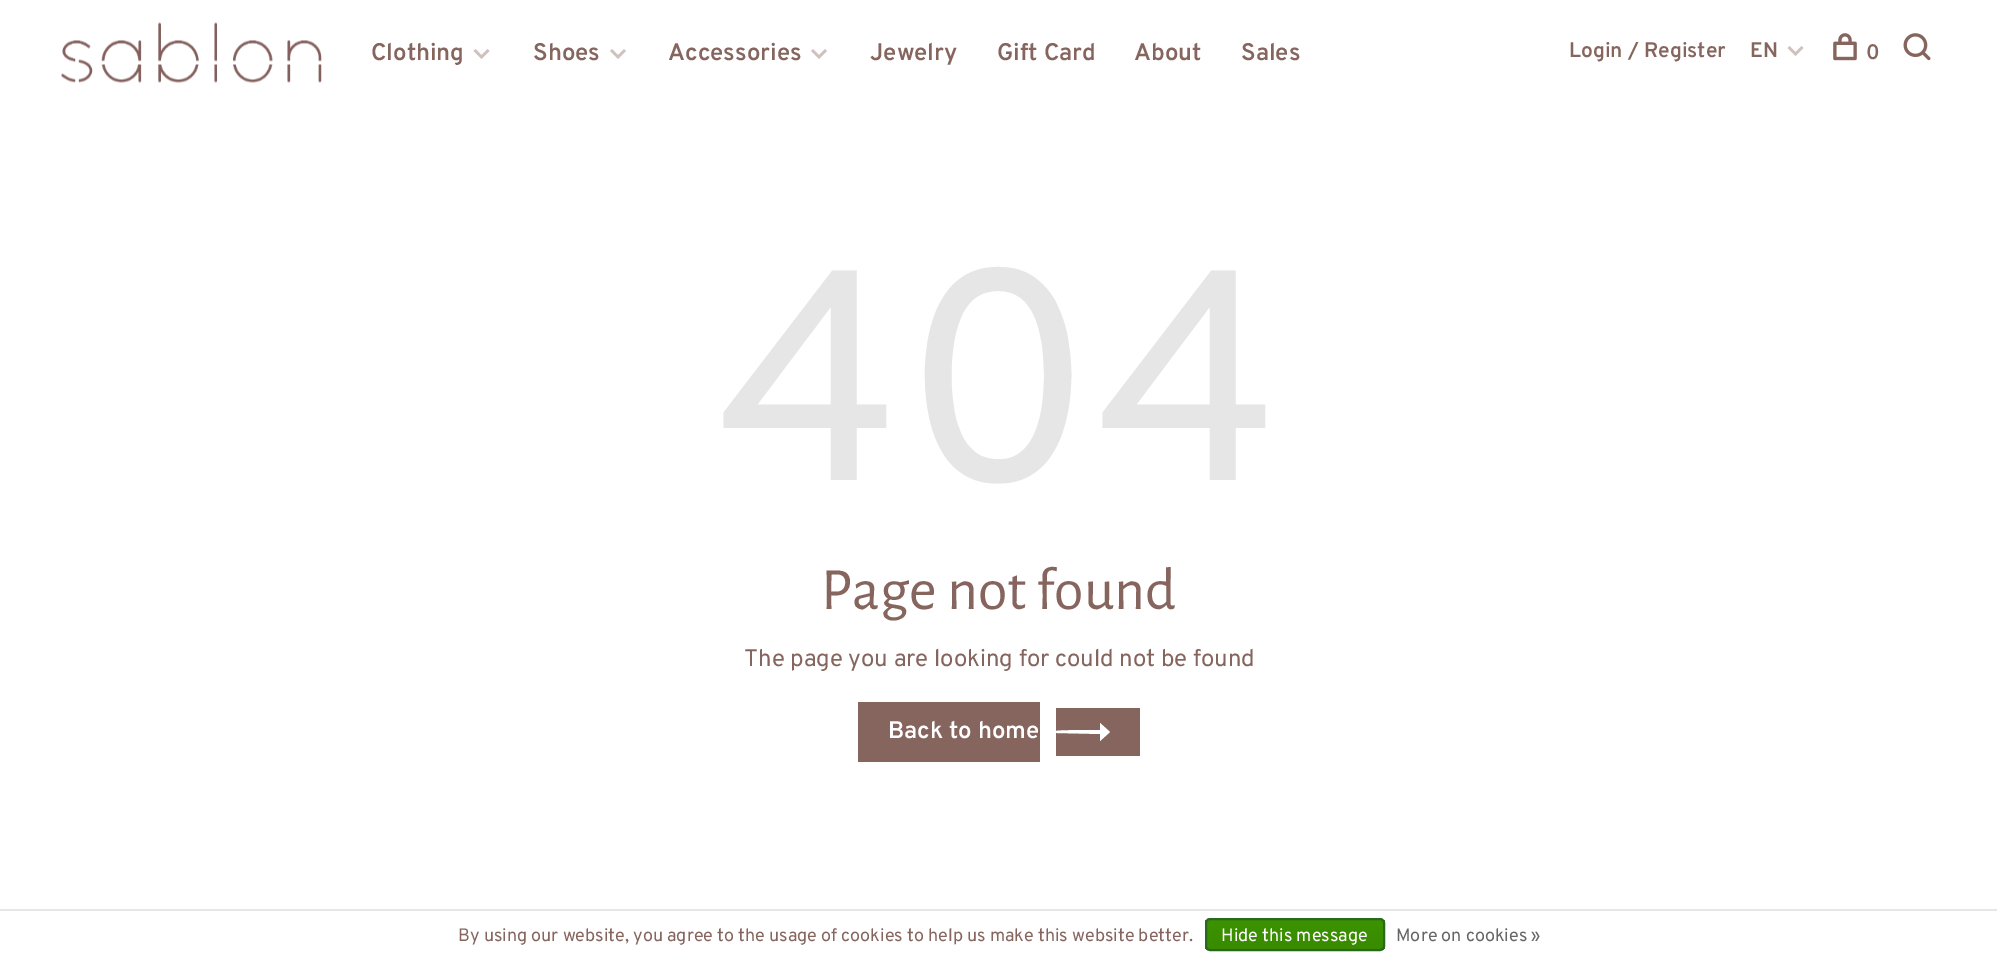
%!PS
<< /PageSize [1997 962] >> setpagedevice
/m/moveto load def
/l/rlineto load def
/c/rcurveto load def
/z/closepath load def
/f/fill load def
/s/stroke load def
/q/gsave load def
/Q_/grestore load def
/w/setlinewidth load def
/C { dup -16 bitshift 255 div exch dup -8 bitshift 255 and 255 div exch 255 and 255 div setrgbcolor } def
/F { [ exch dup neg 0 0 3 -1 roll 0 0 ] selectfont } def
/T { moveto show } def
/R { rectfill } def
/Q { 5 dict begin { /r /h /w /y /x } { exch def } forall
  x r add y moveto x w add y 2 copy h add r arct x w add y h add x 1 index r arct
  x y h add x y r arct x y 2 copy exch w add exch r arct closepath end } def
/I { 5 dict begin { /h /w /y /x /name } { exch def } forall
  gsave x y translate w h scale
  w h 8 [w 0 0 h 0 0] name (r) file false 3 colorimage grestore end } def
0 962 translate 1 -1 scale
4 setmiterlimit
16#FFFFFF C
0 0 1997 962 R
(1.rgb) 61 22 261 61 I
/Overpass-SemiBold 24 F
16#85655D C
(Clothing) 371 60 T
(2.rgb) 473 49 17 10 I
(Shoes) 533 60 T
(3.rgb) 610 49 16 10 I
(Accessories) 668 60 T
(3.rgb) 811 49 16 10 I
(Jewelry) 870 60 T
(Gift Card) 997 60 T
(About) 1134 60 T
(Sales) 1241 60 T
/Overpass-SemiBold 21 F
(Login / Register) 1569 57 T
(EN) 1750 57 T
(2.rgb) 1787 46 17 10 I
(4.rgb) 1833 33 24 28 I
(0) 1866 59 T
(5.rgb) 1903 33 28 28 I
/Overpass-Regular 300 F
16#E6E6E6 C
(404) 716 480 T
/AlegreyaSans-Regular 60 F
16#85655D C
(Page not found) 821 609 T
/Overpass-Regular 24 F
(The page you are looking for could not be found) 744 666 T
858 702 182 60 R
1056 708 84 48 R
/Overpass-SemiBold 24 F
16#FFFFFF C
(Back to home) 888 738 T
1100 730 m -5 0 -43 0 -44 1 c 0 1 0 2 1 2 c 43 1 l 0 7 l 10 -9 l -10 -9 l z f
16#E6E6E6 C
0 909 1997 2 R
/Overpass-Regular 18 F
16#85655D C
(By using our website, you agree to the usage of cookies to help us make this website better.) 458 941 T
q
1205 918 180 33 5 Q clip newpath
q 1205 920 m 180 0 l 0 30 l -180 0 l z clip newpath
<< /ShadingType 2 /ColorSpace /DeviceRGB /Coords [1295 920 1295 950] /Extend [true true] /Function << /FunctionType 2 /Domain [0 1] /C0 [.235 .576 0] /C1 [.224 .541 0] /N 1 >> >> shfill Q_
Q_
16#29691D C
2 w
1206 919 178 31 4 Q s
16#FFFFFF C
(Hide this message) 1221 941 T
16#666666 C
(More on cookies ») 1396 941 T
showpage
